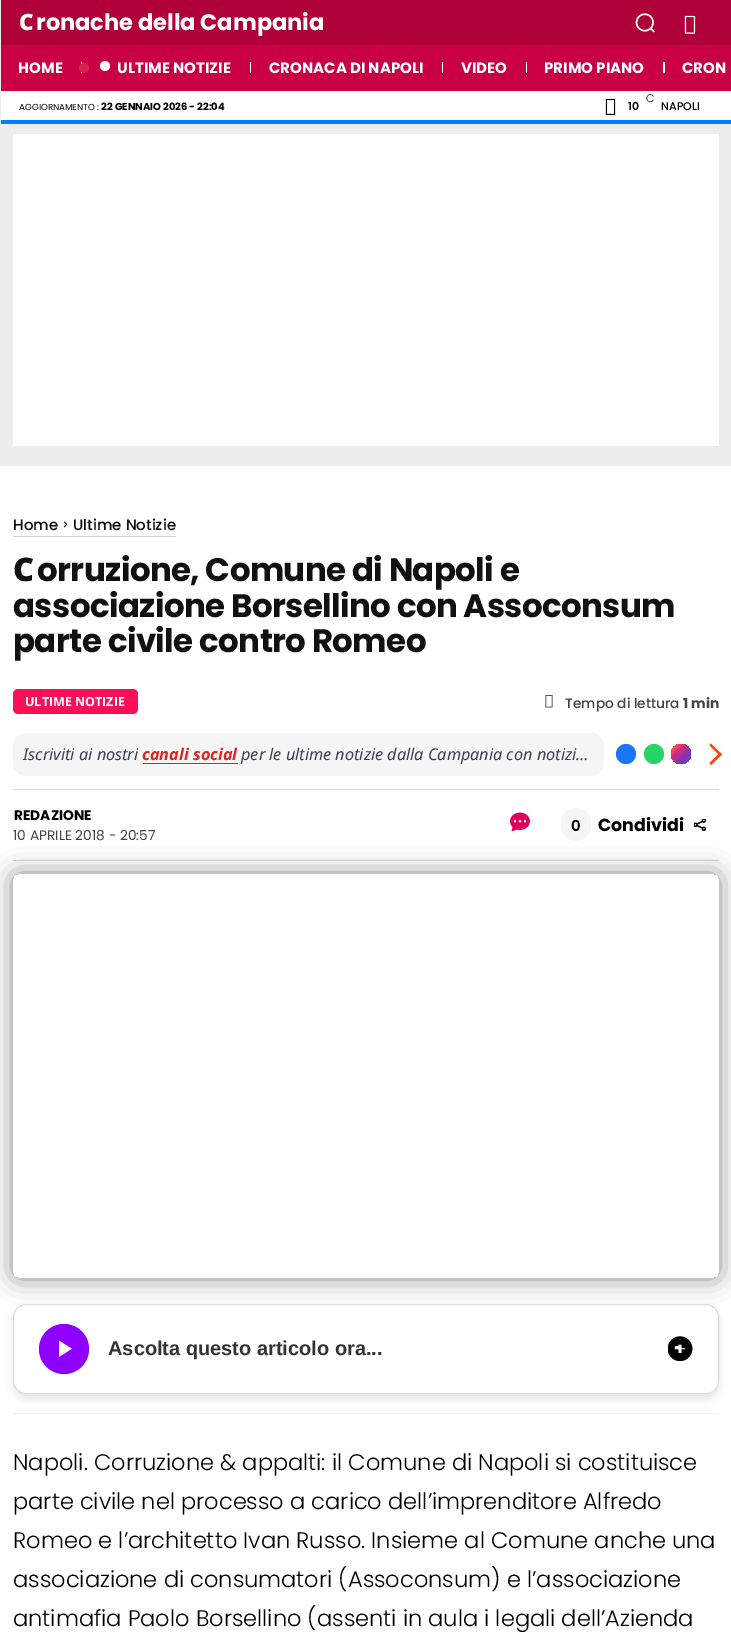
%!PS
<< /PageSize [731 1640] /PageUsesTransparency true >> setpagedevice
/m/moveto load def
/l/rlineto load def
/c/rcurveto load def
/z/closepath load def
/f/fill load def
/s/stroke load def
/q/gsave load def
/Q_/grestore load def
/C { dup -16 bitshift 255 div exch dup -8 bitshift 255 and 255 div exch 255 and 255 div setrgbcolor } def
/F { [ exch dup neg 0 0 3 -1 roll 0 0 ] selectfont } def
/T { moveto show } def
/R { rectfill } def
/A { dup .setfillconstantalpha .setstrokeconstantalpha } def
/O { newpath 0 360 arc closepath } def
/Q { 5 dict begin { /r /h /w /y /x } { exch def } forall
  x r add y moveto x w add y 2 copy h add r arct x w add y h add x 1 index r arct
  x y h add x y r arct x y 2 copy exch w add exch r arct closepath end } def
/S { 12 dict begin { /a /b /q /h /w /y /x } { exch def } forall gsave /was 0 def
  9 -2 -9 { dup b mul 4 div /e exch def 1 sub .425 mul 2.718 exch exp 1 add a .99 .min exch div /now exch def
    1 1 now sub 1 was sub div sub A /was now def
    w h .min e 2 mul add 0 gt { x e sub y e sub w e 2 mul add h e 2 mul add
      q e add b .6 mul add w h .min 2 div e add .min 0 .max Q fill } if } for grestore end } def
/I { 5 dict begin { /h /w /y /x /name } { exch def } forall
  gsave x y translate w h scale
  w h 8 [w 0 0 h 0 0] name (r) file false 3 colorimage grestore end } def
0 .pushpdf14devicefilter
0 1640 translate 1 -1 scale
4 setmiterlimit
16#EDEDED C
0 0 731 1640 R
16#AF003A C
1 0 730 45 R
/NotoSans-Black 22.5 F
16#FFFFFF C
(C) 19 30 T
/Poppins-Bold 22.5 F
(ronache della Campania) 36 30 T
(1.rgb) 635 13 20 20 I
(2.rgb) 684 15 12 19 I
16#C90043 C
1 45 730 46 R
/Poppins-Bold 15 F
16#FFFFFF C
(HOME) 18 73 T
81 62 1 11 R
16#D3224F C
84 68 5 O f
16#FFFFFF C
105 66 5 O f
(ULTIME NOTIZIE) 117 73 T
250 62 1 11 R
(CRONACA DI NAPOLI) 269 73 T
442 62 1 11 R
(VIDEO) 461 73 T
526 62 1 11 R
(PRIMO PIANO) 544 73 T
663 62 2 11 R
(CRON) 682 73 T
1 91 730 29 R
/Poppins-Regular 8.75 F
16#000000 C
(AGGIORNAMENTO :) 19 110 T
/Poppins-Bold 10 F
(22 GENNAIO 2026 - 22:04) 101 110 T
(3.rgb) 605 98 11 17 I
/Poppins-Light 11 F
(C) 646 102 T
/Poppins-SemiBold 11 F
(10) 628 110 T
/Poppins-Medium 11 F
(NAPOLI) 661 110 T
16#007EFC C
1 120 730 4 R
16#FFFFFF C
0 466 731 1174 R
13 134 706 312 R
16#D1D1D1 C
13 536 163 1 R
/Poppins-Medium 15 F
16#0A0A0A C
(Home) 13 530 T
(4.rgb) 63 521 5 7 I
(Ultime Notizie) 73 530 T
/NotoSans-Black 32.5 F
16#111111 C
13 581 m -.6 0 (C) ashow
/Poppins-Bold 32.5 F
37 581 m -.6 0 (orruzione, Comune di Napoli e) ashow
13 617 m -.6 0 (associazione Borsellino con Assoconsum) ashow
13 652 m -.6 0 (parte civile contro Romeo) ashow
16#FC0F56 C
13 689 125 25 5 Q f
/OpenSans-Bold 12.5 F
16#FFFFFF C
(ULTIME NOTIZIE) 25 706 T
(5.rgb) 545 695 8 13 I
/Poppins-Medium 13.75 F
16#444444 C
(Tempo di lettura) 565 708 T
/Poppins-Bold 13.75 F
(1 min) 683 708 T
16#F5F5F5 C
13 733 591 43 13 Q f
/NotoSans-Italic 16.25 F
16#374151 C
(Iscriviti ai nostri) 23 760 T
/NotoSans-BoldItalic 16.25 F
16#DC2626 C
(canali social) 142 760 T
143 763 95 1 R
/NotoSans-Italic 16.25 F
16#374151 C
(per le ultime notizie dalla Campania con notizi…) 241 760 T
16#1877F2 C
626 754 10 O f
16#25D366 C
654 754 10 O f
q 681 754 10 O clip newpath
<< /ShadingType 2 /ColorSpace /DeviceRGB /Coords [671 744 691 764] /Extend [true true] /Function << /FunctionType 3 /Domain [0 1] /Functions [<< /FunctionType 2 /Domain [0 1] /C0 [.961 .522 .161] /C1 [.867 .165 .482] /N 1 >> << /FunctionType 2 /Domain [0 1] /C0 [.867 .165 .482] /C1 [.506 .204 .686] /N 1 >> << /FunctionType 2 /Domain [0 1] /C0 [.506 .204 .686] /C1 [.318 .357 .831] /N 1 >>] /Bounds [.33 .67] /Encode [0 1 0 1 0 1] >> >> shfill Q_
16#FF4500 C
709.5 745.5 m 1.5 -2 l 11 11 l -2 1.5 l z f
709.5 763 m 10.5 -10.5 l 2 2 l -11 10.5 l z f
16#D8D8D8 C
13 789 706 1 R
13 860 706 1 R
/Poppins-Bold 13.75 F
16#000000 C
(REDAZIONE) 14 820 T
/Poppins-Regular 13.75 F
16#444444 C
(10 APRILE 2018 - 20:57) 13 840 T
(6.rgb) 510 812 20 19 I
16#F5F5F5 C
561 808 30 33 15 Q f
/Poppins-SemiBold 15 F
16#000000 C
(0) 571 831 T
/Poppins-Bold 17.5 F
(Condividi) 598 831 T
(7.rgb) 694 819 12 12 I
q
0 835 m 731 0 l 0 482 l -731 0 l z 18 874 m 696 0 l 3 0 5 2 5 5 c 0 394 l 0 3 -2 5 -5 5 c -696 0 l -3 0 -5 -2 -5 -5 c 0 -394 l 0 -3 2 -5 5 -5 c z eoclip newpath
16#888888 C
13 874 706 404 5 12.5 1 S
Q_
0.76 A
16#EFEFEF C
13 1290 706 1 R
1 A
16#F3F3F3 C
13 1413 706 1 R
16#000000 C
13 1309 706 90 13 4 .1 S
16#FFFFFF C
13.5 1304.5 705 89 12.5 Q q f Q_
16#DDDDDD C
s
16#8D00FF C
64 1349 25 O f
(8.rgb) 59 1340 13 17 I
/LiberationSans-Bold 20 F
16#333333 C
(Ascolta questo articolo ora...) 108 1355 T
(9.rgb) 668 1336 25 25 I
/Poppins-Light 22.5 F
16#000000 C
(Napoli. Corruzione & appalti: il Comune di Napoli si costituisce) 13 1470 T
(parte civile nel processo a carico dell’imprenditore Alfredo) 13 1509 T
(Romeo e l’architetto Ivan Russo. Insieme al Comune anche una) 13 1548 T
(associazione di consumatori \(Assoconsum\) e l’associazione) 13 1587 T
(antimafia Paolo Borsellino \(assenti in aula i legali dell’Azienda) 13 1626 T
.poppdf14devicefilter showpage
